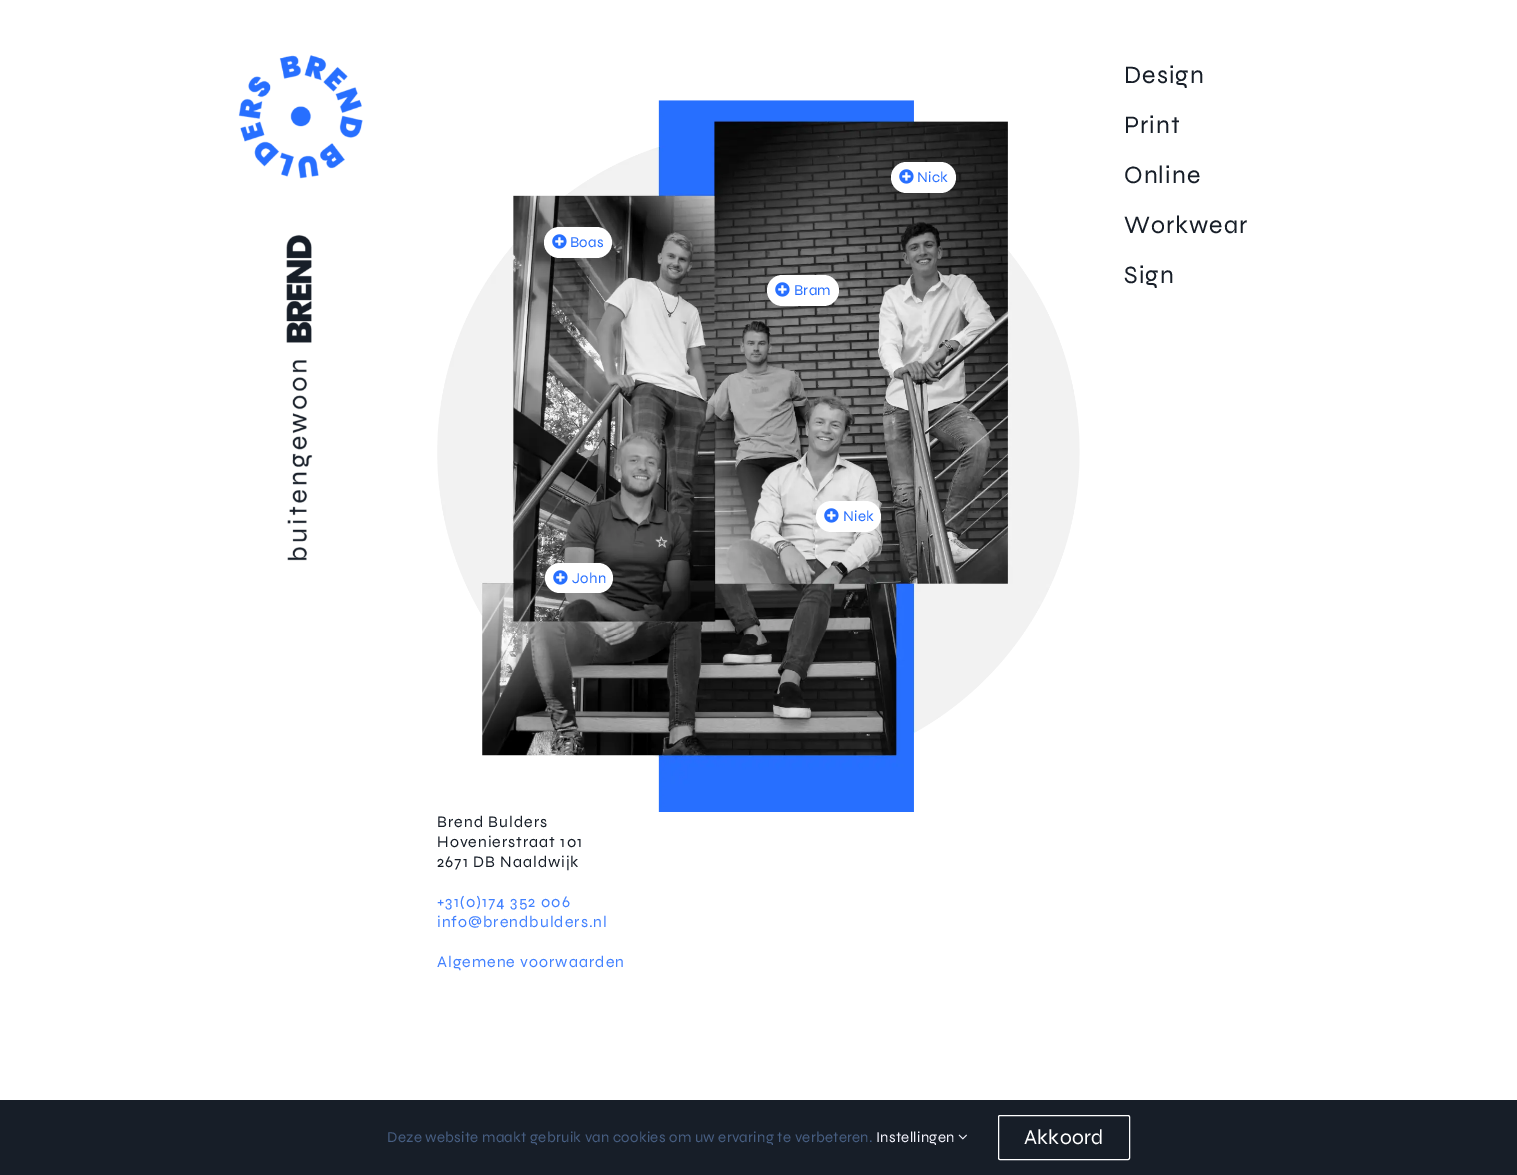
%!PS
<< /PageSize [1517 1175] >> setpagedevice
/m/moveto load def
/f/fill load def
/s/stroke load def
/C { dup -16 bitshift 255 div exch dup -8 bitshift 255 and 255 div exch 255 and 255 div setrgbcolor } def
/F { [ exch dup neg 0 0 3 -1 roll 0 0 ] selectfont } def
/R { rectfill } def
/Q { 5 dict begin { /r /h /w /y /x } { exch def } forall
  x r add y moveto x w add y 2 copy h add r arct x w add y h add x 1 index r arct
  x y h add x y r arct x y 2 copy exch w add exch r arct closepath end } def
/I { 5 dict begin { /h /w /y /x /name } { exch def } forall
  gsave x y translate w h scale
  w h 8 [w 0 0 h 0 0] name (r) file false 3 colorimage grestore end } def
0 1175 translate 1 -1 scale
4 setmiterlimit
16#FFFFFF C
0 0 1517 1175 R
(1.rgb) 238 55 125 506 I
(2.rgb) 437 100 643 712 I
891 162 65 31 15.5 Q f
(3.rgb) 899 169 15 15 I
/Syne-Regular 15 F
16#276FFF C
917 182 m .25 0 (Nick) ashow
16#FFFFFF C
544 227 68 31 15.5 Q f
(3.rgb) 552 234 15 15 I
16#276FFF C
570 247 m .25 0 (Boas) ashow
16#FFFFFF C
767 275 72 31 15.5 Q f
(3.rgb) 775 282 15 15 I
16#276FFF C
794 295 m .25 0 (Bram) ashow
16#FFFFFF C
816 501 65 31 15.5 Q f
(3.rgb) 824 508 15 15 I
16#276FFF C
843 521 m .25 0 (Niek) ashow
16#FFFFFF C
545 563 68 30 15 Q f
(3.rgb) 553 570 15 15 I
16#276FFF C
572 583 m .25 0 (John) ashow
/Syne-Regular 16 F
16#171E28 C
437 827 m 1 0 (Brend Bulders) ashow
437 847 m 1 0 (Hovenierstraat 101) ashow
437 867 m 1 0 (2671 DB Naaldwijk) ashow
16#4281FF C
437 907 m 1 0 (+31\(0\)174 352 006) ashow
437 927 m 1 0 (info@brendbulders.nl) ashow
437 967 m 1 0 (Algemene voorwaarden) ashow
/Syne-Regular 25 F
16#171E28 C
1124 83 m 1 0 (Design) ashow
1124 133 m 1 0 (Print) ashow
1124 183 m 1 0 (Online) ashow
1124 233 m 1 0 (Workwear) ashow
1124 283 m 1 0 (Sign) ashow
0 1100 1517 75 R
/Syne-Regular 15 F
16#475E82 C
387 1142 m .25 0 (Deze website maakt gebruik van cookies om uw ervaring te verbeteren.) ashow
16#F3F3FD C
876 1142 m .25 0 (Instellingen) ashow
(4.rgb) 958 1134 9 6 I
16#FFFFFF C
998.5 1115.5 131 44 1.5 Q s
/Syne-Regular 21 F
1024 1144 m .25 0 (Akkoord) ashow
showpage
